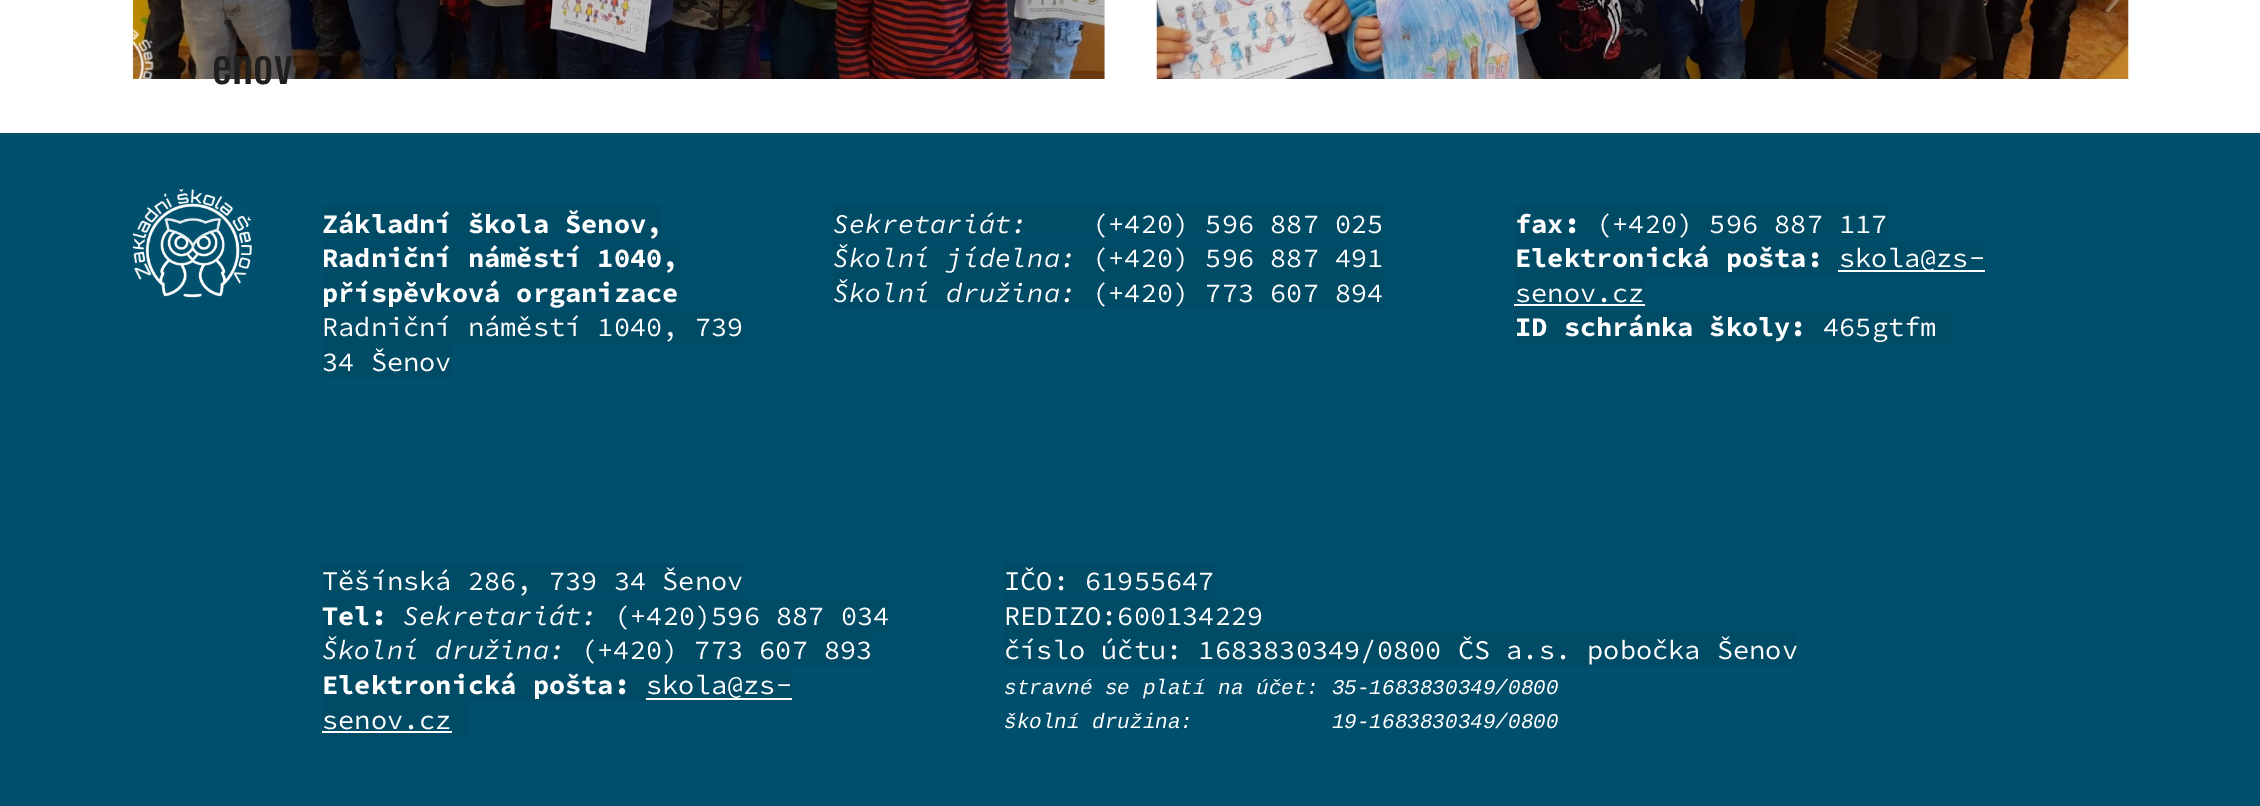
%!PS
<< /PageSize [2260 806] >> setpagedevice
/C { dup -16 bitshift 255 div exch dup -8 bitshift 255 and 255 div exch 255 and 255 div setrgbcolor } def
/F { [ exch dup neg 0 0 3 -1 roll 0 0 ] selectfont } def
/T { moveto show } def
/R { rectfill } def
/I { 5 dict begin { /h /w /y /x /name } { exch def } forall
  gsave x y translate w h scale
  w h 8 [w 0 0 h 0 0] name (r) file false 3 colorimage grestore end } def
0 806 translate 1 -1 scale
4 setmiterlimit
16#FFFFFF C
0 0 2260 806 R
(1.rgb) 132 0 973 79 I
(2.rgb) 1156 0 973 79 I
(3.rgb) 132 28 22 51 I
/Oswald-Regular 48 F
16#1F1F1F C
(enov) 212 84 T
16#00506D C
0 133 2260 673 R
(4.rgb) 132 188 120 110 I
16#004B66 C
322 205 340 34 R
/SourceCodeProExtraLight-Bold 27 F
16#FFFFFF C
(Základní škola Šenov,) 322 233 T
16#004B66 C
322 241 358 67 R
16#FFFFFF C
(Radniční náměstí 1040,) 322 267 T
(příspěvková organizace) 322 302 T
16#004B66 C
322 311 421 33 R
/SourceCodeProExtraLight-Regular 27 F
16#FFFFFF C
(Radniční náměstí 1040, 739) 322 336 T
16#004B66 C
322 344 130 34 R
16#FFFFFF C
(34 Šenov) 322 371 T
16#004B66 C
833 205 551 34 R
/SourceCodeProExtraLight-Italic 27 F
16#FFFFFF C
(Sekretariát:) 833 233 T
/SourceCodeProExtraLight-Regular 27 F
(\(+420\) 596 887 025) 1092 233 T
16#004B66 C
833 241 551 34 R
/SourceCodeProExtraLight-Italic 27 F
16#FFFFFF C
(Školní jídelna:) 833 267 T
/SourceCodeProExtraLight-Regular 27 F
(\(+420\) 596 887 491) 1092 267 T
16#004B66 C
833 275 551 33 R
/SourceCodeProExtraLight-Italic 27 F
16#FFFFFF C
(Školní družina:) 833 302 T
/SourceCodeProExtraLight-Regular 27 F
(\(+420\) 773 607 894) 1092 302 T
16#004B66 C
1514 205 374 34 R
/SourceCodeProExtraLight-Bold 27 F
16#FFFFFF C
(fax:) 1515 233 T
/SourceCodeProExtraLight-Regular 27 F
(\(+420\) 596 887 117) 1596 233 T
16#004B66 C
1514 241 471 34 R
/SourceCodeProExtraLight-Bold 27 F
16#FFFFFF C
(Elektronická pošta:) 1515 267 T
1838 270 147 2 R
/SourceCodeProExtraLight-Regular 27 F
(skola@zs-) 1839 267 T
16#004B66 C
1514 275 131 33 R
16#FFFFFF C
(senov.cz) 1515 302 T
1514 304 131 2 R
16#004B66 C
1514 311 439 33 R
/SourceCodeProExtraLight-Bold 27 F
16#FFFFFF C
(ID schránka školy:) 1515 336 T
/SourceCodeProExtraLight-Regular 27 F
(465gtfm) 1823 336 T
16#004B66 C
322 563 421 33 R
16#FFFFFF C
(Těšínská 286, 739 34 Šenov) 322 590 T
16#004B66 C
322 599 567 33 R
/SourceCodeProExtraLight-Bold 27 F
16#FFFFFF C
(Tel:) 322 625 T
/SourceCodeProExtraLight-Italic 27 F
(Sekretariát:) 403 625 T
/SourceCodeProExtraLight-Regular 27 F
(\(+420\)596 887 034) 614 625 T
16#004B66 C
322 632 551 34 R
/SourceCodeProExtraLight-Italic 27 F
16#FFFFFF C
(Školní družina:) 322 659 T
/SourceCodeProExtraLight-Regular 27 F
(\(+420\) 773 607 893) 581 659 T
16#004B66 C
322 668 470 34 R
/SourceCodeProExtraLight-Bold 27 F
16#FFFFFF C
(Elektronická pošta:) 322 694 T
/SourceCodeProExtraLight-Regular 27 F
(skola@zs-) 646 694 T
646 698 146 2 R
16#004B66 C
322 702 146 34 R
16#FFFFFF C
(senov.cz) 322 729 T
322 731 130 2 R
16#004B66 C
1004 563 211 33 R
16#FFFFFF C
(IČO: 61955647) 1004 590 T
16#004B66 C
1004 599 258 33 R
16#FFFFFF C
(REDIZO:600134229) 1004 625 T
16#004B66 C
1004 632 794 34 R
16#FFFFFF C
(číslo účtu: 1683830349/0800 ČS a.s. pobočka Šenov) 1004 659 T
/LiberationMono-Italic 21 F
(stravné se platí na účet: 35-1683830349/0800) 1004 694 T
(školní družina:           19-1683830349/0800) 1004 728 T
showpage
